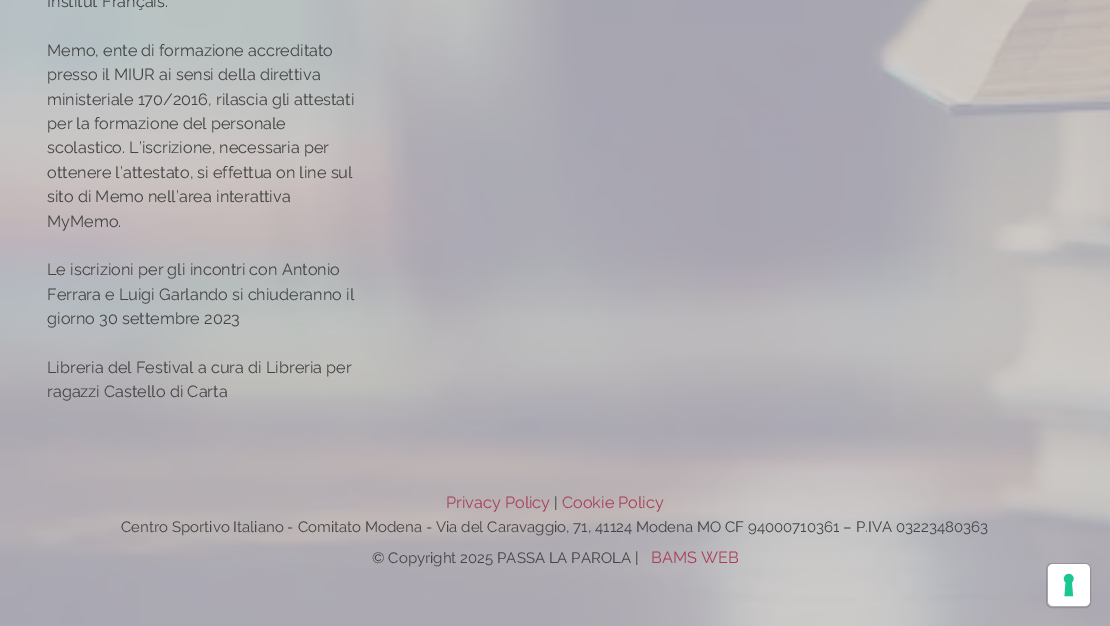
%!PS-Adobe-3.0
%%BoundingBox: 0 0 1110 626
%%LanguageLevel: 3
%%Pages: 1
%%EndComments
%%BeginProlog
/f { fill } bind def
/S { stroke } bind def
/fn { [ exch dup neg 0 0 3 -1 roll 0 0 ] selectfont } def
/tx { moveto show } def
/bx { rectfill } def
/al { dup .setfillconstantalpha .setstrokeconstantalpha } def
/rr { 5 dict begin { /r /h /w /y /x } { exch def } forall
  x r add y moveto x w add y 2 copy h add r arct x w add y h add x 1 index r arct
  x y h add x y r arct x y 2 copy exch w add exch r arct closepath end } def
/im { 5 dict begin { /h /w /y /x /name } { exch def } forall
  gsave x y translate w h scale
  w h 8 [w 0 0 h 0 0] name (r) file false 3 colorimage grestore end } def
%%EndProlog
%%BeginSetup
<< /PageSize [1110 626] /PageUsesTransparency true >> setpagedevice
%%EndSetup
%%Page: 1 1
0 .pushpdf14devicefilter
0 626 translate 1 -1 scale
4 setmiterlimit
1 setgray
0 0 1110 626 bx
(image0.raw) 0 0 1110 626 im
/Raleway-Regular 16.25 fn
0.267 setgray
(Institut Français.) 47 7 tx
(Memo, ente di formazione accreditato) 47 56 tx
(presso il MIUR ai sensi della direttiva) 47 80 tx
(ministeriale 170/2016, rilascia gli attestati) 47 105 tx
(per la formazione del personale) 47 129 tx
(scolastico. L’iscrizione, necessaria per) 47 153 tx
(ottenere l’attestato, si effettua on line sul) 47 178 tx
(sito di Memo nell’area interattiva) 47 202 tx
(MyMemo.) 47 227 tx
(Le iscrizioni per gli incontri con Antonio) 47 275 tx
(Ferrara e Luigi Garlando si chiuderanno il) 47 300 tx
(giorno 30 settembre 2023) 47 324 tx
(Libreria del Festival a cura di Libreria per) 47 373 tx
(ragazzi Castello di Carta) 47 397 tx
0.663 0.243 0.341 setrgbcolor
(Privacy Policy) 446 508 tx
/Raleway-Regular 15 fn
0.267 setgray
(|) 554 508 tx
/Raleway-Regular 16.25 fn
0.663 0.243 0.341 setrgbcolor
(Cookie Policy) 562 508 tx
/Raleway-Regular 15 fn
0.267 setgray
(Centro Sportivo Italiano - Comitato Modena - Via del Caravaggio, 71, 41124 Modena MO CF 94000710361 – P.IVA 03223480363) 121 532 tx
(© Copyright 2025 PASSA LA PAROLA |) 372 563 tx
/Raleway-Regular 16.25 fn
0.663 0.243 0.341 setrgbcolor
(BAMS WEB) 651 563 tx
0.15 al
0 setgray
1046.5 563.5 44 44 5.5 rr S
1 al
1 setgray
1048 564 42 42 5 rr f
(image1.raw) 1063 573 11 24 im
.poppdf14devicefilter showpage
%%EOF
